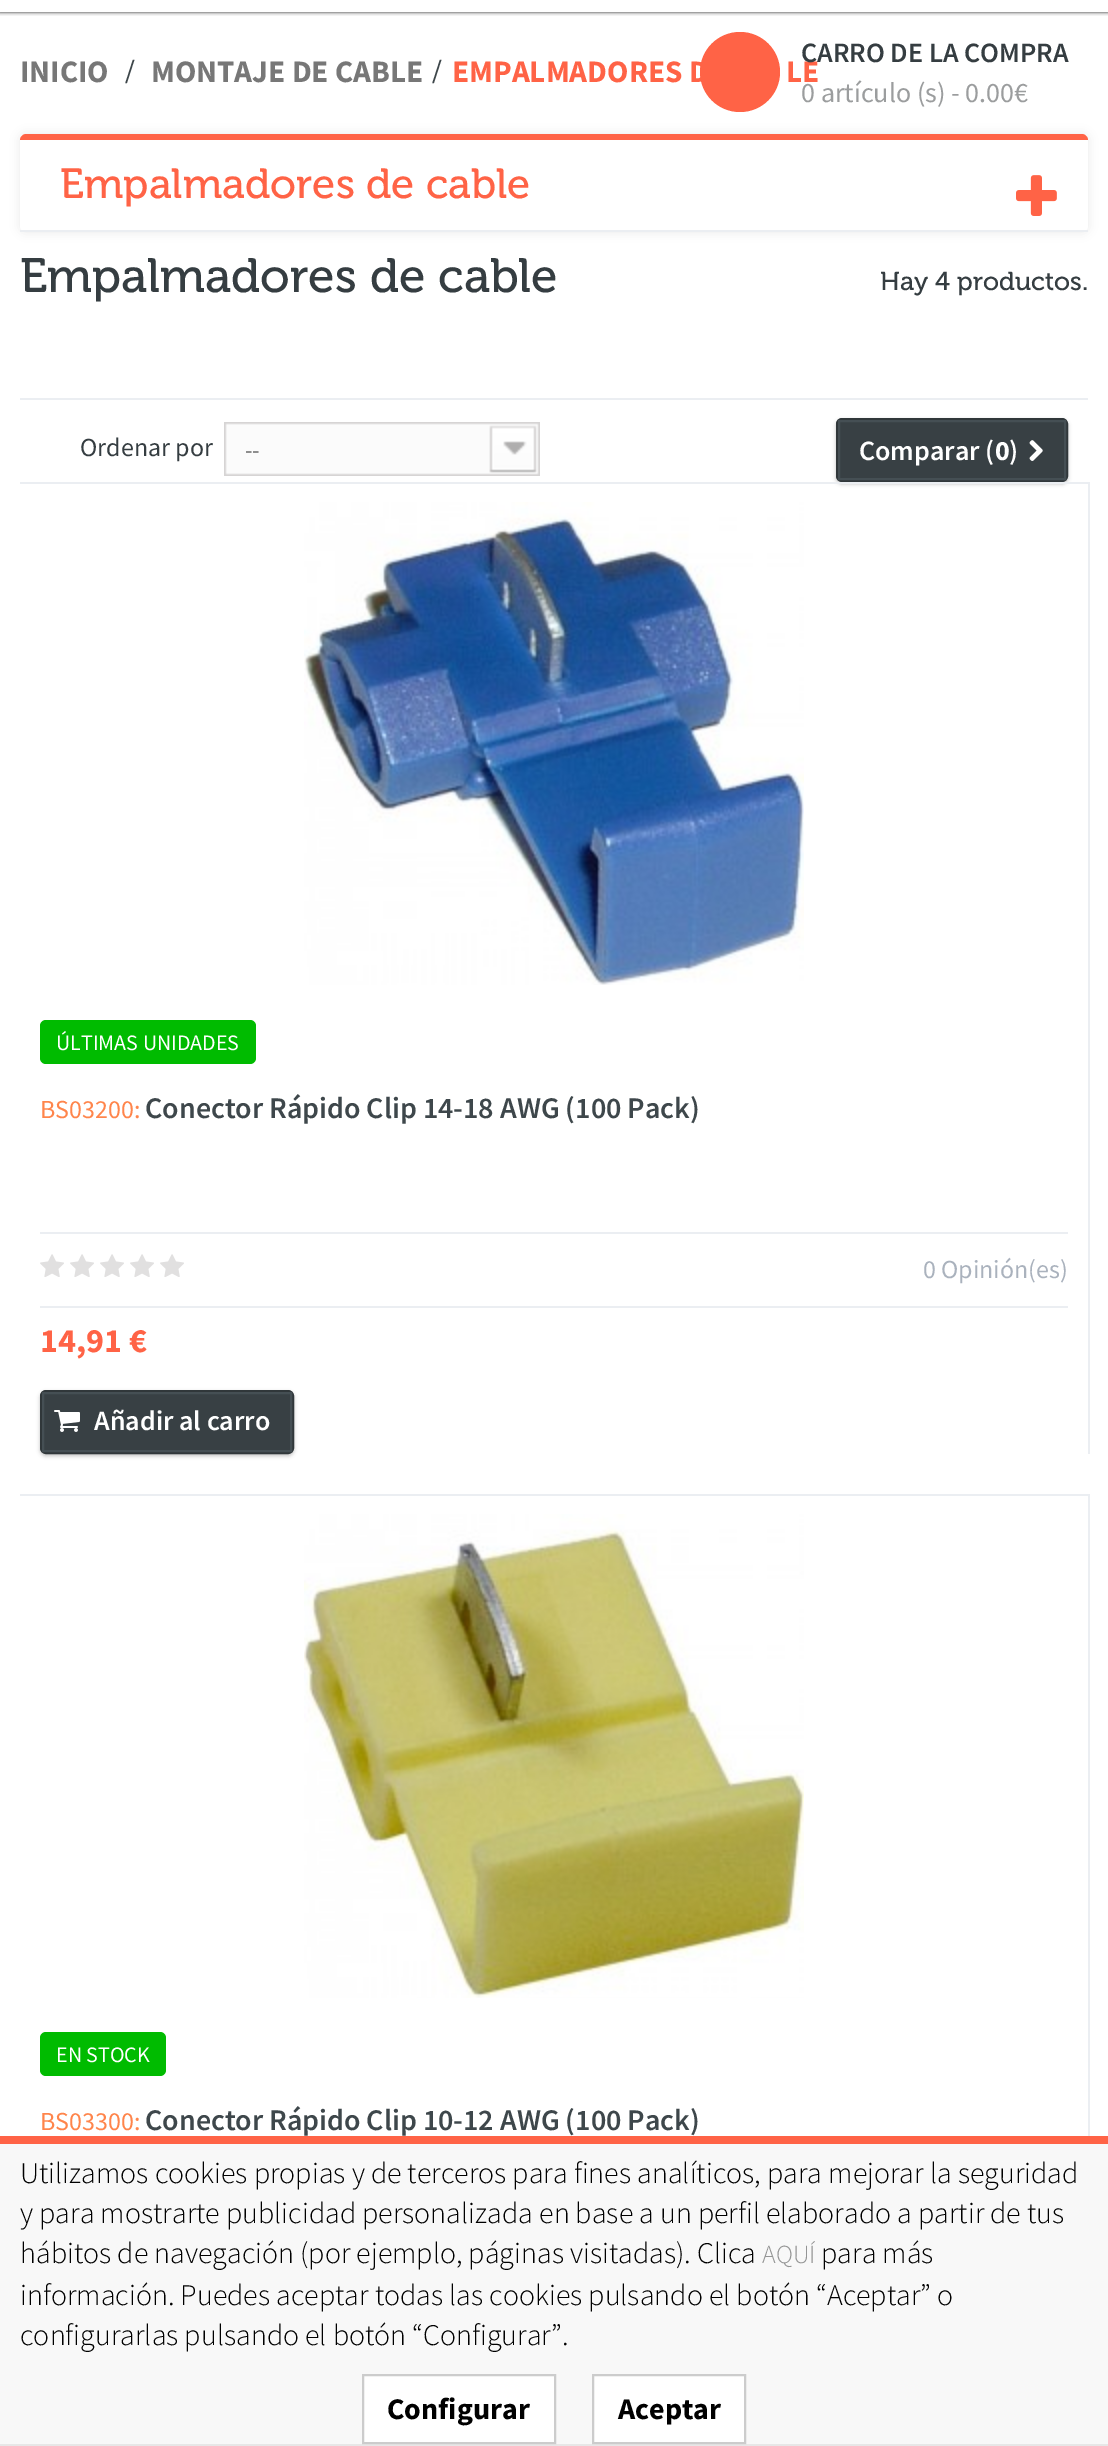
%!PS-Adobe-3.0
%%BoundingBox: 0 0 1108 2446
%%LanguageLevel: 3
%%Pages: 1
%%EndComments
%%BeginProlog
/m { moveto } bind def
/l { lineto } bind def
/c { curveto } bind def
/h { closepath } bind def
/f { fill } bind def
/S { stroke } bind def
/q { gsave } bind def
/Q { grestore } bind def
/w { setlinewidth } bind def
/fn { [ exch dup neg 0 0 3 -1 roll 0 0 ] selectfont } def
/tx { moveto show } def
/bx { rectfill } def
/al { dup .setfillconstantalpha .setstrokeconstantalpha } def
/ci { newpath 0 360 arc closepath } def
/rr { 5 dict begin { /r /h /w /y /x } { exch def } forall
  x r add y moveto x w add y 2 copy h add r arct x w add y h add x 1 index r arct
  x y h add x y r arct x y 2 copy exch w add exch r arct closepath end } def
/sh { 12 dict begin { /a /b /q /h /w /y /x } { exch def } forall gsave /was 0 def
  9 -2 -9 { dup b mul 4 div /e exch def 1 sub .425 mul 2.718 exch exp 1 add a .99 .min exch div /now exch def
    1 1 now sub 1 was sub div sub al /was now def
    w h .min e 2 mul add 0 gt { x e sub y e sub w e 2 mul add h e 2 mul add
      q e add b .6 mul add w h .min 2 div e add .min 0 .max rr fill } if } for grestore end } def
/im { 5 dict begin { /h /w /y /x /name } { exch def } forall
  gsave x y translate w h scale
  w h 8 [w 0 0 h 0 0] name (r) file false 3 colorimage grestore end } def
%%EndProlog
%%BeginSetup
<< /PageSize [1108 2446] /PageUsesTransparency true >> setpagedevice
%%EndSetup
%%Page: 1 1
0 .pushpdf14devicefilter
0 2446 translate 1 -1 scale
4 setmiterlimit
1 setgray
0 0 1108 2446 bx
/SourceSansPro-Bold 31.25 fn
0.467 setgray
(INICIO) 20 82 tx
/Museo-Regular 30 fn
0.243 0.278 0.294 setrgbcolor
(/) 125 82 tx
/SourceSansPro-Bold 31.25 fn
0.467 setgray
(MONTAJE DE CABLE) 151 82 tx
/Museo-Regular 30 fn
0.243 0.278 0.294 setrgbcolor
(/) 432 82 tx
/SourceSansPro-Bold 31.25 fn
1 0.388 0.275 setrgbcolor
(EMPALMADORES D) 452 82 tx
(LE) 786 82 tx
q
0 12 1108 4 rectclip
0.071 setgray
0 -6 1108 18 0 2 1 sh
Q
740 72 40 ci f
/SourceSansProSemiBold-SemiBold 28 fn
0.208 0.239 0.255 setrgbcolor
(CARRO DE LA COMPRA) 801 62 tx
/SourceSansPro-Regular 28 fn
0.608 0.616 0.62 setrgbcolor
(0 artículo \(s\) - 0.00€) 801 102 tx
0.647 setgray
20 134 1068 98 6 5 0.24 sh
1 setgray
20 134 1068 98 6 rr f
1 0.388 0.275 setrgbcolor
26 134 m 23 134 20 137 20 140 c 1088 140 l 1088 137 1085 134 1082 134 c h f
0.922 0.933 0.949 setrgbcolor
20 230 1068 2 bx
/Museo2-Regular 42 fn
1 0.388 0.275 setrgbcolor
(Empalmadores de cable) 60 198 tx
(image0.raw) 1016 175 41 41 im
/Museo2-Regular 48 fn
0.208 0.239 0.255 setrgbcolor
(Empalmadores de cable) 20 292 tx
/Museo2-Regular 26 fn
(Hay 4 productos.) 880 290 tx
0.922 0.933 0.949 setrgbcolor
20 398 1068 2 bx
/SourceSansPro-Regular 26 fn
0.208 0.239 0.255 setrgbcolor
(Ordenar por) 80 456 tx
(image1.raw) 224 422 316 54 im
(image2.raw) 489 423 51 52 im
/SourceSansPro-Regular 24 fn
0.4 setgray
(--) 245 458 tx
0 setgray
836 420 232 64 6 2 0.24 sh
0.22 0.251 0.267 setrgbcolor
837 419 230 62 5 rr q f Q
0.188 0.216 0.227 setrgbcolor
2 w
S
0.271 0.31 0.329 setrgbcolor
839 421 226 58 rectstroke
/SourceSansProSemiBold-SemiBold 28 fn
1 setgray
(Comparar \() 859 460 tx
/SourceSansPro-Bold 28 fn
(0) 995 460 tx
/SourceSansProSemiBold-SemiBold 28 fn
(\)) 1009 460 tx
(image3.raw) 1029 440 14 21 im
0.922 0.933 0.949 setrgbcolor
20 482 1070 2 bx
1088 482 2 972 bx
(image4.raw) 304 502 500 483 im
0 0.733 0 setrgbcolor
40 1020 216 44 6 rr f
/SourceSansPro-Regular 22 fn
1 setgray
(ÚLTIMAS UNIDADES) 56 1050 tx
0.922 0.933 0.949 setrgbcolor
40 1232 1028 2 bx
/SourceSansPro-Regular 26 fn
1 0.522 0.294 setrgbcolor
(BS03200:) 40 1118 tx
/SourceSansProSemiBold-SemiBold 30 fn
0.243 0.278 0.294 setrgbcolor
(Conector Rápido Clip 14-18 AWG \(100 Pack\)) 145 1118 tx
(image5.raw) 40 1254 24 23 im
(image5.raw) 70 1254 24 23 im
(image5.raw) 100 1254 24 23 im
(image5.raw) 130 1254 24 23 im
(image5.raw) 160 1254 24 23 im
/SourceSansPro-Regular 26 fn
0.667 0.698 0.741 setrgbcolor
(0 Opinión\(es\)) 923 1278 tx
0.922 0.933 0.949 setrgbcolor
40 1306 1028 2 bx
/SourceSansPro-Bold 34 fn
1 0.388 0.275 setrgbcolor
(14,91 €) 40 1352 tx
0 setgray
40 1392 254 64 6 2 0.24 sh
0.22 0.251 0.267 setrgbcolor
41 1391 252 62 5 rr q f Q
0.188 0.216 0.227 setrgbcolor
S
0.271 0.31 0.329 setrgbcolor
43 1393 248 58 rectstroke
(image6.raw) 54 1410 26 22 im
/SourceSansProSemiBold-SemiBold 28 fn
1 setgray
(Añadir al carro) 94 1430 tx
0.922 0.933 0.949 setrgbcolor
20 1494 1070 2 bx
1088 1494 2 642 bx
(image7.raw) 304 1514 500 484 im
0 0.733 0 setrgbcolor
40 2032 126 44 6 rr f
/SourceSansPro-Regular 22 fn
1 setgray
(EN STOCK) 56 2062 tx
/SourceSansPro-Regular 26 fn
1 0.522 0.294 setrgbcolor
(BS03300:) 40 2130 tx
/SourceSansProSemiBold-SemiBold 30 fn
0.243 0.278 0.294 setrgbcolor
(Conector Rápido Clip 10-12 AWG \(100 Pack\)) 145 2130 tx
0.973 setgray
0 2144 1108 300 bx
0.906 setgray
0 2444 1108 2 bx
1 0.388 0.275 setrgbcolor
0 2136 1108 8 bx
/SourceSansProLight-Light 30 fn
0 setgray
(Utilizamos cookies propias y de terceros para fines analíticos, para mejorar la seguridad) 20 2183 tx
(y para mostrarte publicidad personalizada en base a un perfil elaborado a partir de tus) 20 2223 tx
(hábitos de navegación \(por ejemplo, páginas visitadas\). Clica) 20 2263 tx
/SourceSansProLight-Light 26 fn
0.58 0.584 0.584 setrgbcolor
(AQUÍ) 762 2263 tx
/SourceSansProLight-Light 30 fn
0 setgray
(para más) 821 2263 tx
(información. Puedes aceptar todas las cookies pulsando el botón “Aceptar” o) 20 2305 tx
(configurarlas pulsando el botón “Configurar”.) 20 2345 tx
1 setgray
363 2375 m 555 2375 l 555 2443 l 363 2443 l h q f Q
0.8 setgray
S
/SourceSansPro-Bold 30 fn
0 setgray
(Configurar) 387 2419 tx
1 setgray
593 2375 m 745 2375 l 745 2443 l 593 2443 l h q f Q
0.8 setgray
S
0 setgray
(Aceptar) 618 2419 tx
.poppdf14devicefilter showpage
%%EOF
